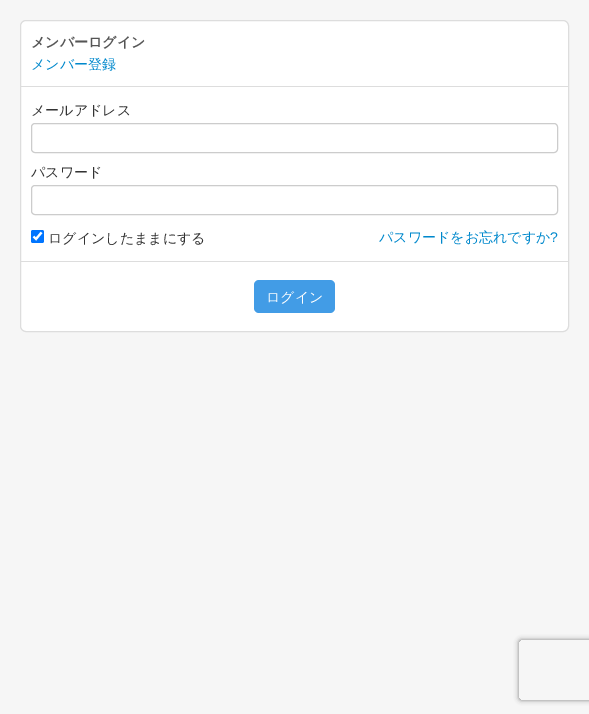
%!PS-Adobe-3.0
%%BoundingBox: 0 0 589 714
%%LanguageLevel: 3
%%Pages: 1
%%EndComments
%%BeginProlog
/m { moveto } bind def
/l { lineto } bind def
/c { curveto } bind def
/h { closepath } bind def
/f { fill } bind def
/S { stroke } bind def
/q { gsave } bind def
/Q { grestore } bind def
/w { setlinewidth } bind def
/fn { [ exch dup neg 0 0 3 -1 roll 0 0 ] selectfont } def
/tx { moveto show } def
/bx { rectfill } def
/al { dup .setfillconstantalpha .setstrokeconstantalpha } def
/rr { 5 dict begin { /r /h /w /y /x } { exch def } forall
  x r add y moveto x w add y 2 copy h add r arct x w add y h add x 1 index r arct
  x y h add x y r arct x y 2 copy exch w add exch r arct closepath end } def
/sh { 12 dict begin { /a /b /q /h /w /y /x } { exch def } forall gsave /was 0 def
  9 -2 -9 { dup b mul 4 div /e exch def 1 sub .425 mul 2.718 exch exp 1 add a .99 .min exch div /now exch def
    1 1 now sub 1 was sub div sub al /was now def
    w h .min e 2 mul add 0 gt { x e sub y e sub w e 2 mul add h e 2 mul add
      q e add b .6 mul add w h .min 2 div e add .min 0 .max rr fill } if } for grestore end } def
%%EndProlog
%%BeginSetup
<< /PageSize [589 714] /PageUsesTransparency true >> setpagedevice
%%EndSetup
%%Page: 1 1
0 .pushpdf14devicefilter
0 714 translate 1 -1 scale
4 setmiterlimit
0.965 setgray
0 0 589 714 bx
1 setgray
20.5 20.5 548 311 5.5 rr q f Q
0.867 setgray
S
21 86 547 1 bx
/WenQuanYiZenHei-Bold 14 fn
0.333 setgray
(メンバーログイン) 31 47 tx
/WenQuanYiZenHei-Medium 14 fn
0 0.533 0.8 setrgbcolor
(メンバー登録) 31 69 tx
0.2 setgray
(メールアドレス) 31 115 tx
0.8 setgray
31.5 123.5 526 29 3.5 rr S
0.2 setgray
(パスワード) 31 177 tx
0.8 setgray
31.5 185.5 526 29 3.5 rr S
0 0.459 1 setrgbcolor
31 230 13 13 2 rr f
1 setgray
2.1 w
33.5 236.5 m 36 239 l 41.5 232.5 l S
0.2 setgray
(ログインしたままにする) 48 243 tx
0 0.533 0.8 setrgbcolor
(パスワードをお忘れですか) 379 242 tx
/LiberationSans-Regular 14 fn
(?) 550 242 tx
0.867 setgray
21 261 547 1 bx
0.259 0.612 0.902 setrgbcolor
254 280 81 33 5 rr f
/WenQuanYiZenHei-Medium 14 fn
1 setgray
(ログイン) 266 302 tx
q
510 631 m 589 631 l 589 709 l 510 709 l h 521 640 m 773 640 l 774 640 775 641 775 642 c 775 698 l 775 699 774 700 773 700 c 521 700 l 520 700 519 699 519 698 c 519 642 l 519 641 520 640 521 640 c h eoclip newpath
0.502 setgray
519 640 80 60 2 2.5 1 sh
Q
.poppdf14devicefilter showpage
%%EOF
